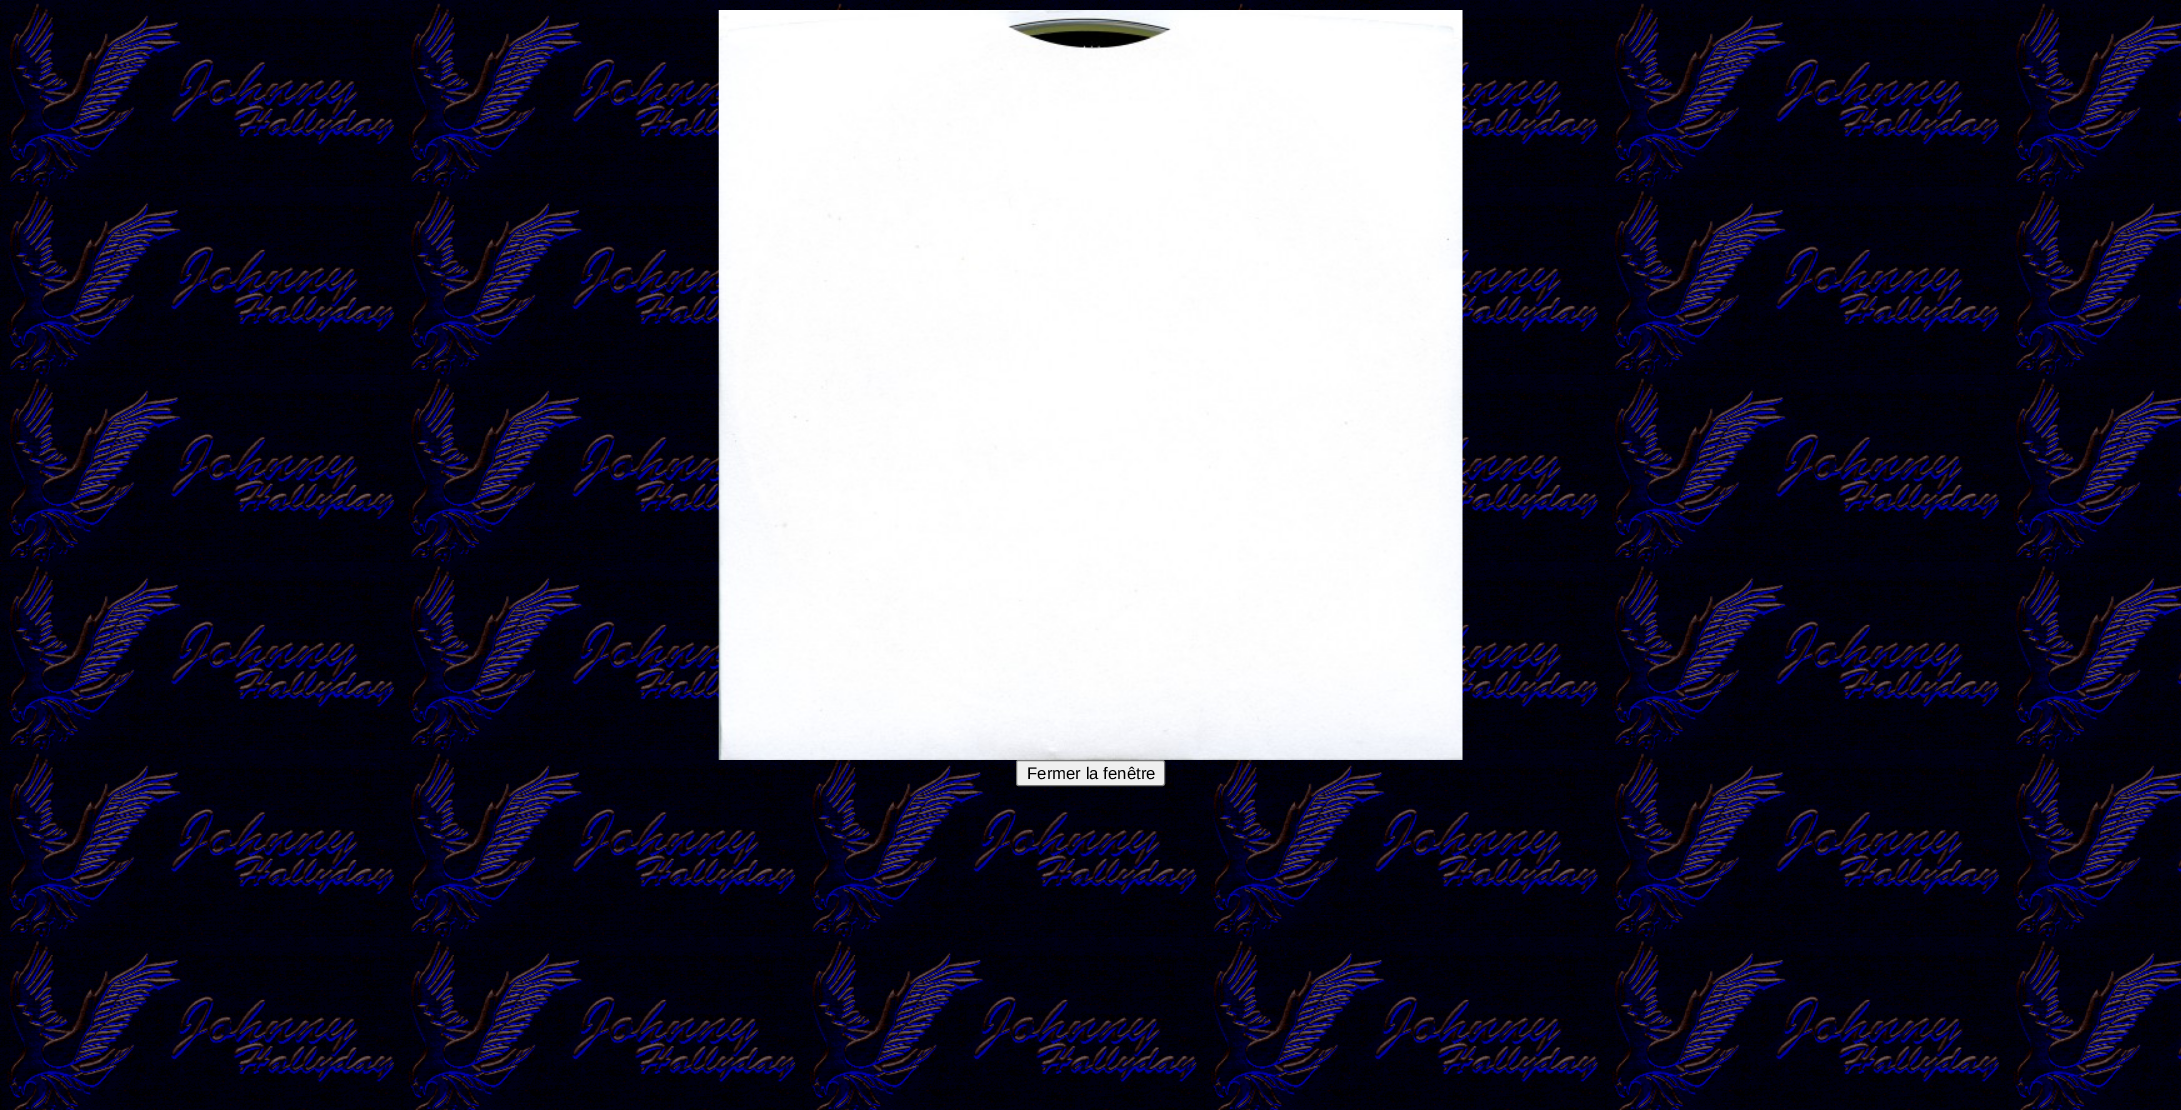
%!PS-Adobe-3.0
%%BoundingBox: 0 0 2181 1110
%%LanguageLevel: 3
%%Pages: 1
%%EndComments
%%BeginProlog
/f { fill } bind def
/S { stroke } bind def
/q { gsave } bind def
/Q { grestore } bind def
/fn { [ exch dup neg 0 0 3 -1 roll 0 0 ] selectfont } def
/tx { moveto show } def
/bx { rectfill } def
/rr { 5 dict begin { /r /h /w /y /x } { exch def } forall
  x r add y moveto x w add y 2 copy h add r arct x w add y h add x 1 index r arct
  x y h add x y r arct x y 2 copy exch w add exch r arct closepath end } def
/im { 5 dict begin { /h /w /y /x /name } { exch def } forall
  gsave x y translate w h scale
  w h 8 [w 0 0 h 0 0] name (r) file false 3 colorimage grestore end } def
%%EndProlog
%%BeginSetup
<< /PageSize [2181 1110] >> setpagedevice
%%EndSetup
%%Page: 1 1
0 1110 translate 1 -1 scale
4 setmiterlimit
1 setgray
0 0 2181 1110 bx
(image0.raw) 0 0 2181 1110 im
(image1.raw) 718 10 745 750 im
0.937 setgray
1016.5 760.5 148 25 2 rr q f Q
0.463 setgray
S
/LiberationSans-Regular 16.75 fn
0 setgray
(Fermer la fenêtre) 1027 779 tx
showpage
%%EOF
